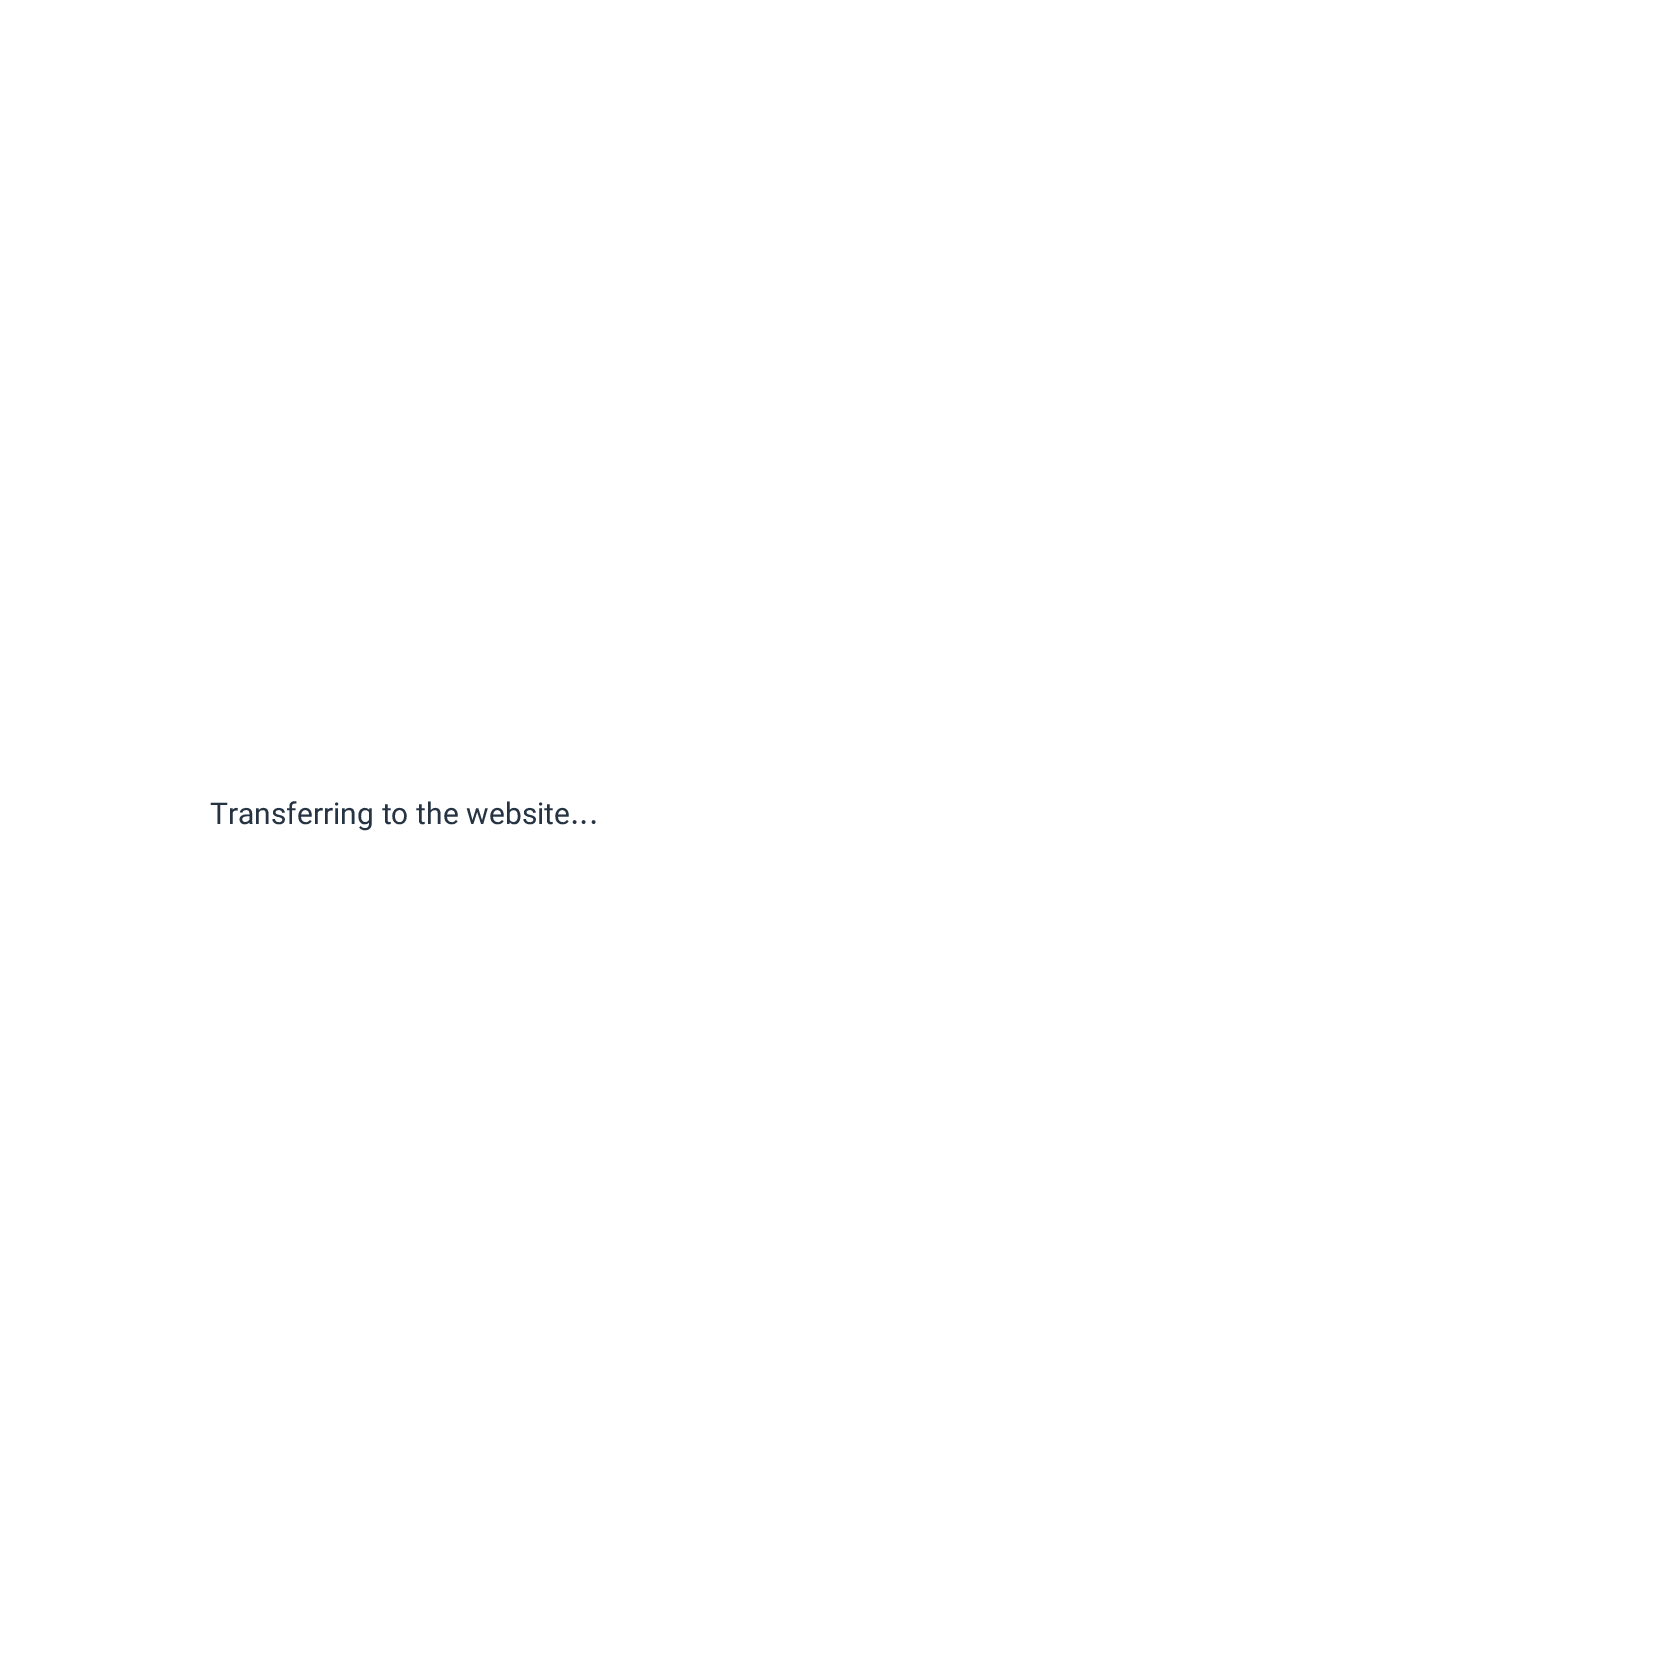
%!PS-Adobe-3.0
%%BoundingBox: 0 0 1658 1653
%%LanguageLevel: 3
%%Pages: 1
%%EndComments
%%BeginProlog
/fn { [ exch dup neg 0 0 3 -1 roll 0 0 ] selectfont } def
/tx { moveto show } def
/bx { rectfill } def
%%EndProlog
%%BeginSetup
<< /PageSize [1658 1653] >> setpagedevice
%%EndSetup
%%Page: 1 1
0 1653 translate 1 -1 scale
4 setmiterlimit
1 setgray
0 0 1658 1653 bx
/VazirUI-Regular 30 fn
0.145 0.2 0.263 setrgbcolor
(Transferring to the website...) 210 824 tx
showpage
%%EOF
